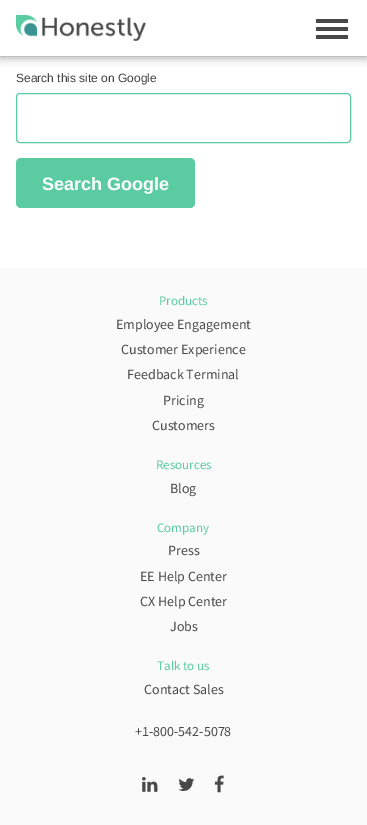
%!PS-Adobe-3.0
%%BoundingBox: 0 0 367 825
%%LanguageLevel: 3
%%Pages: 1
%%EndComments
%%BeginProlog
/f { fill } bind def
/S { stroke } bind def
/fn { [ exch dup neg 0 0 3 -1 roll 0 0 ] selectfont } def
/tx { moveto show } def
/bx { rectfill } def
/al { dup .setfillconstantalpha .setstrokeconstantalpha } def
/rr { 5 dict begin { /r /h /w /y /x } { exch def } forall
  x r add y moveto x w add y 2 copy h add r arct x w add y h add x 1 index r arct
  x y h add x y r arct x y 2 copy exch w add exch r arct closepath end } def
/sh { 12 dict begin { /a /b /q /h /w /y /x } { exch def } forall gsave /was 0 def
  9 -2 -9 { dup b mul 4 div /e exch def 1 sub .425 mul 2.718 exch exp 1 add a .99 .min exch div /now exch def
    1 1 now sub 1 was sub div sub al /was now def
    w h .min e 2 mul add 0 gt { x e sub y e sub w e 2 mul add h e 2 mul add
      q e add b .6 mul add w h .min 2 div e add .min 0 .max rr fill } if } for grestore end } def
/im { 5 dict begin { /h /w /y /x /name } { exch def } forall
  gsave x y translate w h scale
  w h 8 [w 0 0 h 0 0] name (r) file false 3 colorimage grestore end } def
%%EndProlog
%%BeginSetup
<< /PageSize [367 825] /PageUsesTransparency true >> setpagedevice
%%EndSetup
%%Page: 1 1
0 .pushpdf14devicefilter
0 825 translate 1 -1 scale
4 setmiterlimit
1 setgray
0 0 367 825 bx
0 setgray
0 0 367 56 0 5 0.5 sh
1 setgray
0 0 367 56 bx
(image0.raw) 16 15 130 26 im
0.282 setgray
316 27 32 4 1 rr f
316 19 32 4 1 rr f
316 35 32 4 1 rr f
/LiberationSans-Regular 12 fn
0.255 setgray
(Search this site on Google) 16 82 tx
0.357 0.8 0.635 setrgbcolor
16.5 93.5 334 49 3.5 rr S
16 158 179 50 5 rr f
/LiberationSans-Bold 18 fn
1 setgray
(Search Google) 42 190 tx
0.98 setgray
0 268 367 557 bx
/SourceSansPro-Regular 13 fn
0.357 0.8 0.635 setrgbcolor
(Products) 159 305 tx
/SourceSansPro-Regular 14 fn
0.282 setgray
(Employee Engagement) 116 329 tx
(Customer Experience) 121 354 tx
(Feedback Terminal) 127 379 tx
(Pricing) 163 405 tx
(Customers) 152 430 tx
/SourceSansPro-Regular 13 fn
0.357 0.8 0.635 setrgbcolor
(Resources) 156 469 tx
/SourceSansPro-Regular 14 fn
0.282 setgray
(Blog) 170 493 tx
/SourceSansPro-Regular 13 fn
0.357 0.8 0.635 setrgbcolor
(Company) 157 532 tx
/SourceSansPro-Regular 14 fn
0.282 setgray
(Press) 168 555 tx
(EE Help Center) 140 581 tx
(CX Help Center) 140 606 tx
(Jobs) 170 631 tx
/SourceSansPro-Regular 13 fn
0.357 0.8 0.635 setrgbcolor
(Talk to us) 157 670 tx
/SourceSansPro-Regular 14 fn
0.282 setgray
(Contact Sales) 144 694 tx
(+1-800-542-5078) 135 736 tx
(image1.raw) 142 777 16 15 im
(image2.raw) 178 778 17 13 im
(image3.raw) 214 775 10 18 im
.poppdf14devicefilter showpage
%%EOF
